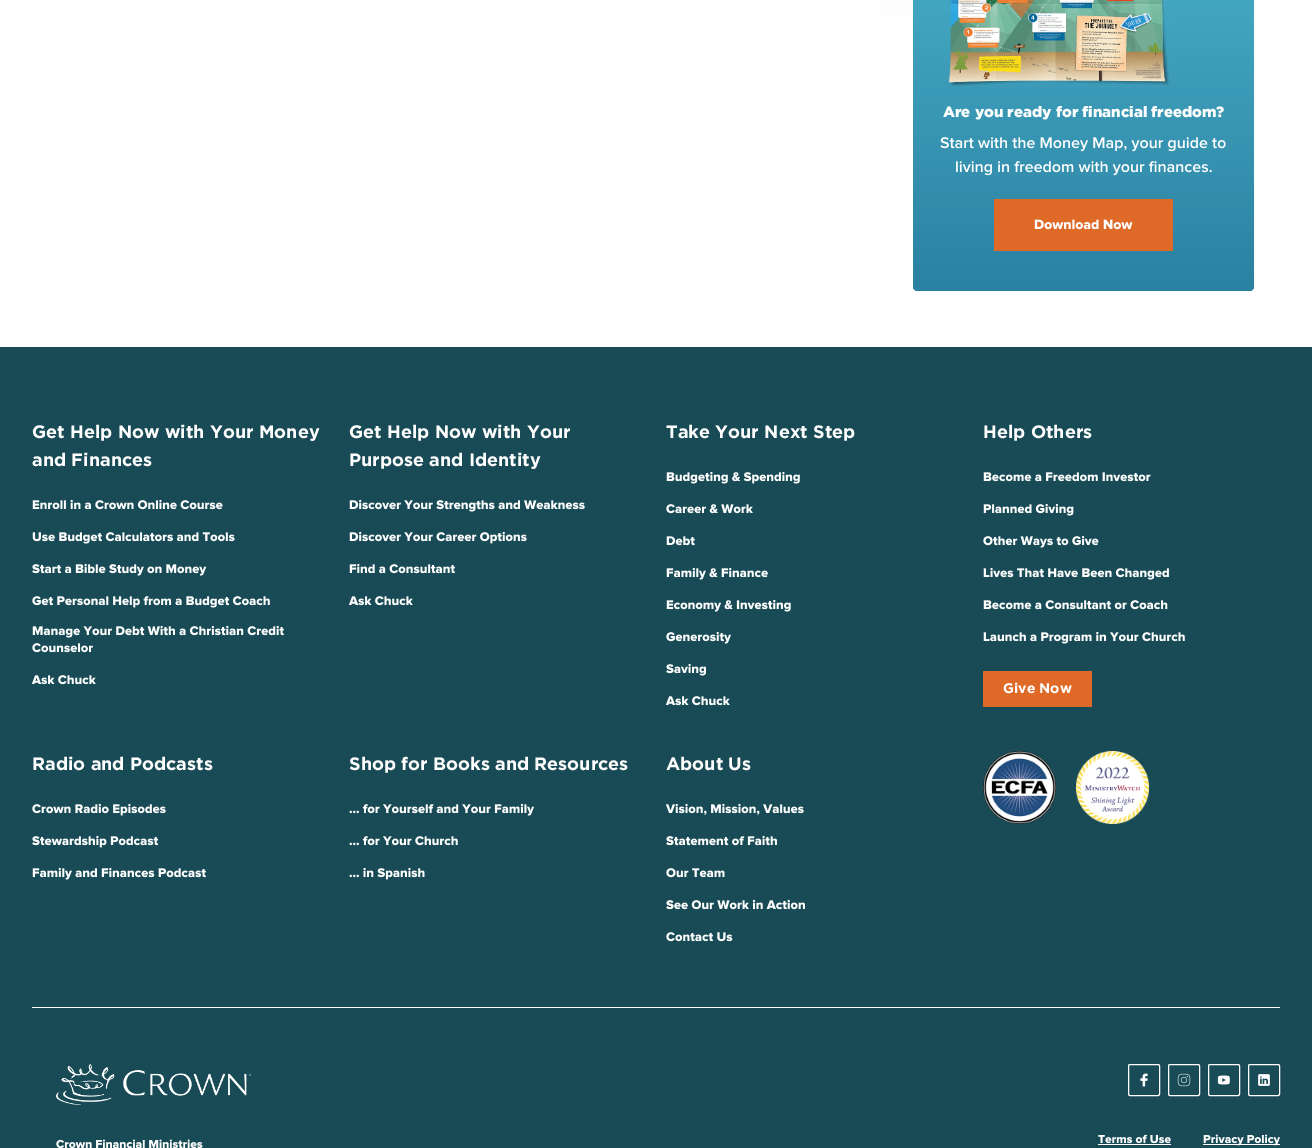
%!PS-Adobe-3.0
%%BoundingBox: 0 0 1312 1148
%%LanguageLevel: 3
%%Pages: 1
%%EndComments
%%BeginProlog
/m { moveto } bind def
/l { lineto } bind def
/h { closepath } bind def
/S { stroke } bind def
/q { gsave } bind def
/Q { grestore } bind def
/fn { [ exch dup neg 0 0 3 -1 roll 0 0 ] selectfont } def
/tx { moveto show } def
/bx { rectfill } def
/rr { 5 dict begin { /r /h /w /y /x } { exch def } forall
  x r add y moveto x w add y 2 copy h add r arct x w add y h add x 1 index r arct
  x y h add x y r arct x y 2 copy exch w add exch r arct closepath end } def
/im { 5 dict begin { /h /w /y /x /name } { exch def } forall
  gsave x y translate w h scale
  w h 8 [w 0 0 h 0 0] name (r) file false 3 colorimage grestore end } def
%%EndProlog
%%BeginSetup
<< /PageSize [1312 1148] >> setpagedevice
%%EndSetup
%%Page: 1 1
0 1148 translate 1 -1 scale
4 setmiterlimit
1 setgray
0 0 1312 1148 bx
q 881 0 m 928 0 l 928 17 l 881 17 l h clip newpath
<< /ShadingType 2 /ColorSpace /DeviceRGB /Coords [777 -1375 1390 309] /Extend [true true] /Function << /FunctionType 2 /Domain [0 1] /C0 [0.961 0.961 0.961] /C1 [1 1 1] /N 1 >> >> shfill Q
q 913 -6 341 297 6 rr clip newpath
<< /ShadingType 2 /ColorSpace /DeviceRGB /Coords [1084 -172 1084 291] /Extend [true true] /Function << /FunctionType 2 /Domain [0 1] /C0 [0.322 0.737 0.831] /C1 [0.165 0.506 0.631] /N 1 >> >> shfill Q
(image0.raw) 949 0 221 87 im
/Gotham-Black 15 fn
(Are you ready for financial freedom?) 943 117 tx
(image1.raw) 940 137 286 15 im
(image2.raw) 956 161 256 15 im
0.875 0.412 0.149 setrgbcolor
994 199 179 52 bx
(image3.raw) 1034 219 99 11 im
0.098 0.294 0.337 setrgbcolor
0 347 1312 801 bx
1 setgray
32 1007 1248 1 bx
/Gotham-Bold 18 fn
(Get Help Now with Your Money) 32 438 tx
(and Finances) 32 466 tx
(image4.raw) 32 499 191 11 im
(image5.raw) 32 532 203 12 im
(image6.raw) 32 563 175 13 im
(image7.raw) 32 596 238 12 im
(image8.raw) 32 625 252 13 im
(image9.raw) 32 643 61 10 im
(image10.raw) 31 675 65 10 im
(Get Help Now with Your) 349 438 tx
(Purpose and Identity) 349 466 tx
(image11.raw) 349 499 236 13 im
(image12.raw) 349 531 178 13 im
(image13.raw) 349 563 106 11 im
(image10.raw) 348 596 65 10 im
(Take Your Next Step) 666 438 tx
(image14.raw) 666 471 134 13 im
(image15.raw) 666 504 87 10 im
(image16.raw) 666 536 29 10 im
(image17.raw) 666 567 102 13 im
(image18.raw) 666 599 125 13 im
(image19.raw) 666 631 65 13 im
(image20.raw) 666 663 40 13 im
(image10.raw) 665 696 65 10 im
(Help Others) 983 438 tx
(image21.raw) 983 472 168 10 im
(image22.raw) 983 503 91 13 im
(image23.raw) 983 535 116 13 im
(image24.raw) 983 567 186 13 im
(image25.raw) 983 600 185 10 im
(image26.raw) 983 631 202 13 im
0.875 0.412 0.149 setrgbcolor
983 671 109 36 bx
/Gotham-Bold 14 fn
1 setgray
(Give Now) 1003 693 tx
/Gotham-Bold 18 fn
(Radio and Podcasts) 32 770 tx
(image27.raw) 32 803 134 13 im
(image28.raw) 32 835 127 13 im
(image29.raw) 32 867 174 13 im
(Shop for Books and Resources) 349 770 tx
(image30.raw) 349 803 185 13 im
(image31.raw) 349 836 109 10 im
(image32.raw) 349 867 76 13 im
(About Us) 666 770 tx
(image33.raw) 665 803 139 12 im
(image34.raw) 666 835 111 11 im
(image35.raw) 666 868 59 10 im
(image36.raw) 666 899 139 11 im
(image37.raw) 666 932 67 10 im
(image38.raw) 983 751 73 73 im
(image39.raw) 1076 751 73 73 im
(image40.raw) 56 1064 195 41 im
(image41.raw) 56 1139 147 9 im
1128.5 1064.5 31 31 1.5 rr S
(image42.raw) 1140 1073 8 14 im
1168.5 1064.5 31 31 1.5 rr S
(image43.raw) 1177 1073 14 14 im
1208.5 1064.5 31 31 1.5 rr S
(image44.raw) 1217 1075 13 10 im
1248.5 1064.5 31 31 1.5 rr S
(image45.raw) 1258 1074 12 12 im
(image46.raw) 1098 1134 73 10 im
1098 1144 73 1 bx
1203 1144 77 1 bx
(image47.raw) 1203 1134 77 12 im
showpage
%%EOF
